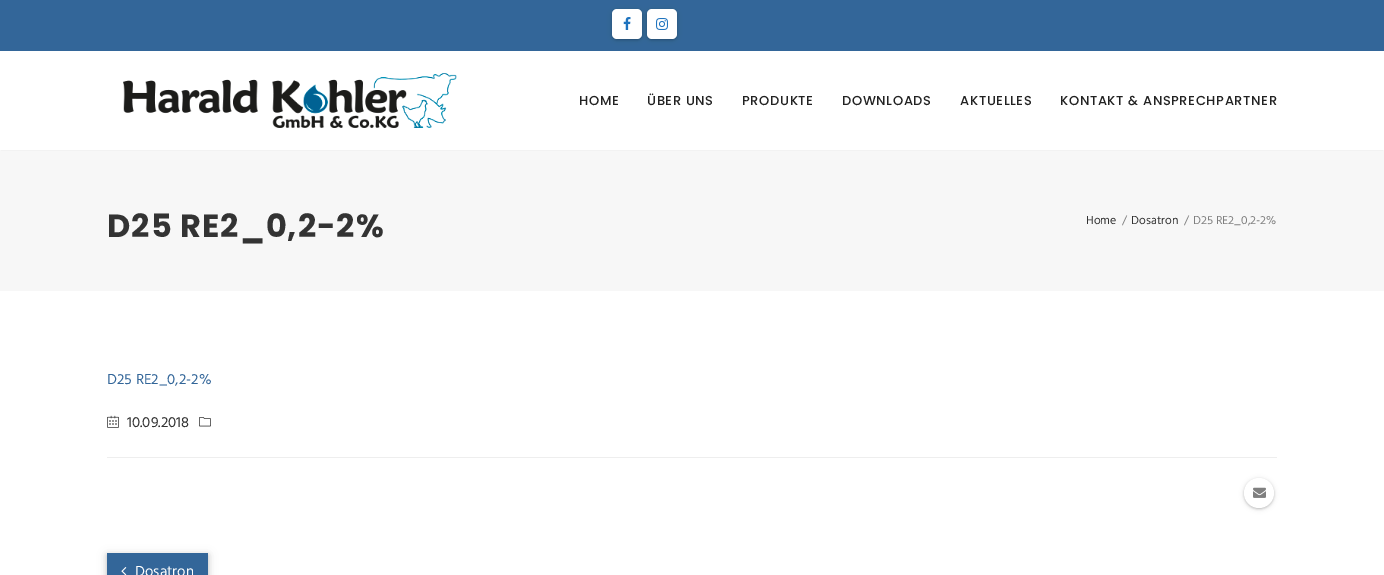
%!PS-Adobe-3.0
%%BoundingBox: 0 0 1384 575
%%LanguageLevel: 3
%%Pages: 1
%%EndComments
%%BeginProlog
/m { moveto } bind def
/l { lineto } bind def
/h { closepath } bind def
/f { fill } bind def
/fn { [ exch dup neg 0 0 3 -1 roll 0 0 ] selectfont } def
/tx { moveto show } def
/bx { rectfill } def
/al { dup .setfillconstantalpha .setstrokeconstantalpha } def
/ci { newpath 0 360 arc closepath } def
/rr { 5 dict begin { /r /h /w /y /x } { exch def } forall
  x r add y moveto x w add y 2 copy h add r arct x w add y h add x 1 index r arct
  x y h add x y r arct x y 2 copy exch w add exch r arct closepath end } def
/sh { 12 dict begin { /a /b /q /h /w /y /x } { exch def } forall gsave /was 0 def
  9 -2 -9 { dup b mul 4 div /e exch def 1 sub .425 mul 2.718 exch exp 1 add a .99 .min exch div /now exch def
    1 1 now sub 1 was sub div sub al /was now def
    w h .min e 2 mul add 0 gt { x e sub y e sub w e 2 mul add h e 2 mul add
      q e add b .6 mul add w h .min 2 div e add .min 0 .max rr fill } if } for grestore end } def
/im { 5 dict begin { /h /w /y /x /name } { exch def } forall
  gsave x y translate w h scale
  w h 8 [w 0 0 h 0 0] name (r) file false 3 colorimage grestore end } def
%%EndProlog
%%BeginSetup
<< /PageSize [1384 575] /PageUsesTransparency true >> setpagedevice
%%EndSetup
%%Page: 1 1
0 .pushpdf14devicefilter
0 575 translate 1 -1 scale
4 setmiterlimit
1 setgray
0 0 1384 575 bx
0.2 0.4 0.6 setrgbcolor
0 0 1384 51 bx
0 setgray
612 10 30 30 5 2.5 0.12 sh
612 10 30 30 5 1 0.16 sh
1 setgray
612 9 30 30 5 rr f
(image0.raw) 623 17 8 13 im
0 setgray
647 10 30 30 5 2.5 0.12 sh
647 10 30 30 5 1 0.16 sh
1 setgray
647 9 30 30 5 rr f
(image1.raw) 656 18 12 12 im
0.949 setgray
1384 151 m 0 151 l 1 150 l 1383 150 l h f
(image2.raw) 123 73 334 55 im
/Poppins-Medium 13 fn
0.133 setgray
579 105 m 0.65 0 (HOME) ashow
647 105 m 0.65 0 (ÜBER UNS) ashow
742 105 m 0.65 0 (PRODUKTE) ashow
842 105 m 0.65 0 (DOWNLOADS) ashow
960 105 m 0.65 0 (AKTUELLES) ashow
1060 105 m 0.65 0 (KONTAKT & ANSPRECHPARTNER) ashow
0.969 setgray
0 151 1384 140 bx
/Poppins-Bold 32 fn
0.2 setgray
107 237 m 1 0 (D25 RE2_0,2-2%) ashow
/Hind-Regular 12 fn
(Home) 1086 224 tx
0.498 setgray
(/) 1122 224 tx
0.2 setgray
(Dosatron) 1131 224 tx
0.498 setgray
(/) 1184 224 tx
(D25 RE2_0,2-2%) 1193 224 tx
/Hind-Regular 15 fn
0.2 0.4 0.6 setrgbcolor
(D25 RE2_0,2-2%) 107 384 tx
(image3.raw) 107 415 12 13 im
0.2 setgray
(10.09.2018) 127 427 tx
(image4.raw) 199 417 12 10 im
0.933 setgray
107 457 1170 1 bx
0 setgray
1244 479 30 30 15 2.5 0.12 sh
1244 479 30 30 15 1 0.16 sh
1 setgray
1259 493 15 ci f
(image5.raw) 1253 487 13 11 im
0 setgray
107 555 101 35 0 5 0.12 sh
107 555 101 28 0 2.5 0.16 sh
0.2 0.4 0.6 setrgbcolor
107 553 101 22 bx
(image6.raw) 121 567 6 8 im
1 setgray
(Dosatron) 135 576 tx
.poppdf14devicefilter showpage
%%EOF
